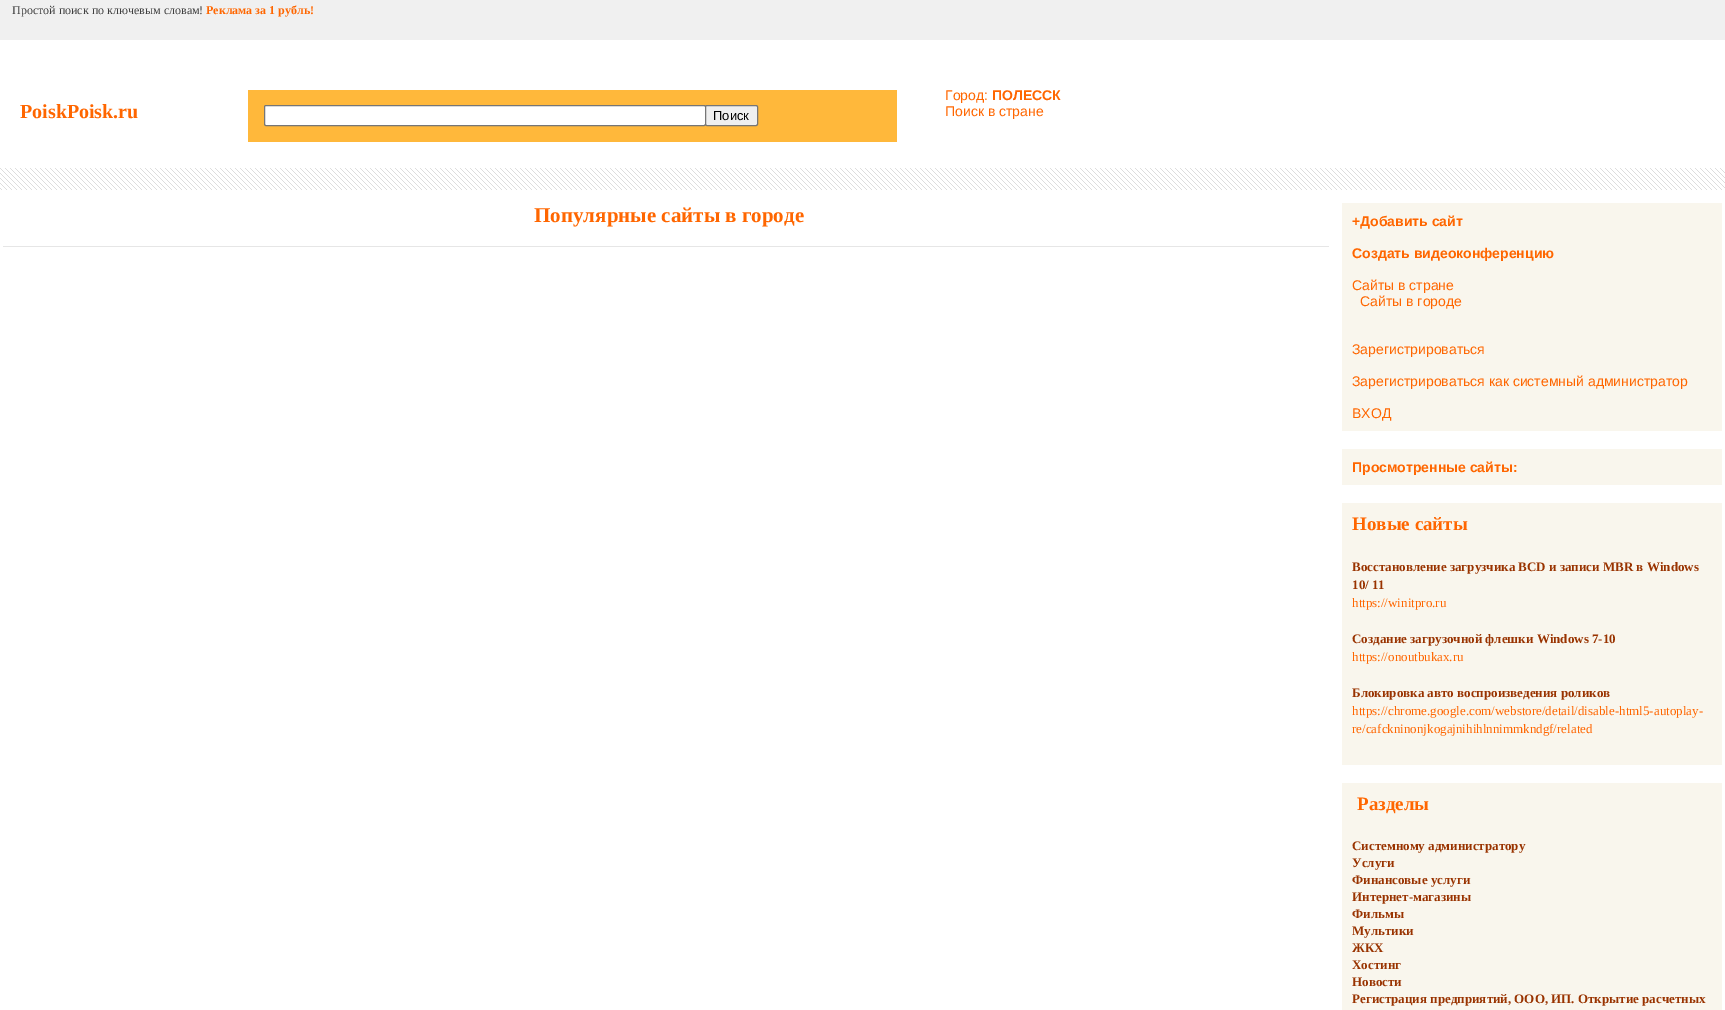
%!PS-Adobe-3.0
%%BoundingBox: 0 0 1725 1010
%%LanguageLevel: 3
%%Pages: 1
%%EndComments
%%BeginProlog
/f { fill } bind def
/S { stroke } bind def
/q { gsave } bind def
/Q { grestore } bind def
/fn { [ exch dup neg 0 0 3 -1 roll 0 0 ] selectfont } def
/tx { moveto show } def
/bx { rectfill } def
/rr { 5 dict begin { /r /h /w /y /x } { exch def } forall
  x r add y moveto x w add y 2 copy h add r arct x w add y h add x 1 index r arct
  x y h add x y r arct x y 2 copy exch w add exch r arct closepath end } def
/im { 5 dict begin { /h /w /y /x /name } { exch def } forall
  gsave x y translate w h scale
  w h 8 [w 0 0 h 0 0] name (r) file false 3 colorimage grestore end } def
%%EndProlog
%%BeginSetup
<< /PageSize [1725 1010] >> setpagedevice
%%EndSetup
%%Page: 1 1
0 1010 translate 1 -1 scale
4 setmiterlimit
1 setgray
0 0 1725 1010 bx
0.941 setgray
0 0 1725 40 bx
/LiberationSerif-Regular 12 fn
0.251 setgray
(Простой поиск по ключевым словам!) 12 14 tx
/LiberationSerif-Bold 12 fn
1 0.4 0 setrgbcolor
(Реклама за 1 рубль!) 206 14 tx
/LiberationSerif-Bold 20 fn
(PoiskPoisk.ru) 20 118 tx
1 0.722 0.231 setrgbcolor
248 90 649 52 bx
/LiberationSans-Regular 14 fn
1 0.4 0 setrgbcolor
(Город:) 945 100 tx
/LiberationSans-Bold 14 fn
(ПОЛЕССК) 992 100 tx
/LiberationSans-Regular 14 fn
(Поиск в стране) 945 116 tx
1 setgray
264.5 105.5 441 20 1.5 rr q f Q
0.463 setgray
S
0.937 setgray
705.5 105.5 52 20 1.5 rr q f Q
0.463 setgray
S
/LiberationSans-Regular 13 fn
0 setgray
(Поиск) 713 120 tx
(image0.raw) 0 168 1725 22 im
/LiberationSerif-Bold 21 fn
1 0.4 0 setrgbcolor
(Популярные сайты в городе) 534 222 tx
0.902 setgray
3 246 1326 1 bx
0.976 0.965 0.929 setrgbcolor
1342 203 380 228 bx
/LiberationSans-Bold 14 fn
1 0.4 0 setrgbcolor
(+Добавить сайт) 1352 226 tx
(Создать видеоконференцию) 1352 258 tx
/LiberationSans-Regular 14 fn
(Сайты в стране) 1352 290 tx
(Сайты в городе) 1360 306 tx
(Зарегистрироваться) 1352 354 tx
(Зарегистрироваться как системный администратор) 1352 386 tx
(ВХОД) 1352 418 tx
0.976 0.965 0.929 setrgbcolor
1342 449 380 36 bx
/LiberationSans-Bold 14 fn
1 0.4 0 setrgbcolor
(Просмотренные сайты:) 1352 472 tx
0.976 0.965 0.929 setrgbcolor
1342 503 380 262 bx
/LiberationSerif-Bold 19 fn
1 0.4 0 setrgbcolor
(Новые сайты) 1352 530 tx
/LiberationSerif-Bold 13 fn
0.6 0.2 0 setrgbcolor
(Восстановление загрузчика BCD и записи MBR в Windows) 1352 571 tx
(10/ 11) 1352 589 tx
/LiberationSerif-Regular 13 fn
1 0.4 0 setrgbcolor
(https://winitpro.ru) 1352 607 tx
/LiberationSerif-Bold 13 fn
0.6 0.2 0 setrgbcolor
(Создание загрузочной флешки Windows 7-10) 1352 643 tx
/LiberationSerif-Regular 13 fn
1 0.4 0 setrgbcolor
(https://onoutbukax.ru) 1352 661 tx
/LiberationSerif-Bold 13 fn
0.6 0.2 0 setrgbcolor
(Блокировка авто воспроизведения роликов) 1352 697 tx
/LiberationSerif-Regular 13 fn
1 0.4 0 setrgbcolor
(https://chrome.google.com/webstore/detail/disable-html5-autoplay-) 1352 715 tx
(re/cafckninonjkogajnihihlnnimmkndgf/related) 1352 733 tx
0.976 0.965 0.929 setrgbcolor
1342 783 380 227 bx
/LiberationSerif-Bold 19 fn
1 0.4 0 setrgbcolor
(Разделы) 1357 810 tx
/LiberationSerif-Bold 13 fn
0.6 0.2 0 setrgbcolor
(Системному администратору) 1352 850 tx
(Услуги) 1352 867 tx
(Финансовые услуги) 1352 884 tx
(Интернет-магазины) 1352 901 tx
(Фильмы) 1352 918 tx
(Мультики) 1352 935 tx
(ЖКХ) 1352 952 tx
(Хостинг) 1352 969 tx
(Новости) 1352 986 tx
(Регистрация предприятий, ООО, ИП. Открытие расчетных) 1352 1003 tx
showpage
%%EOF
